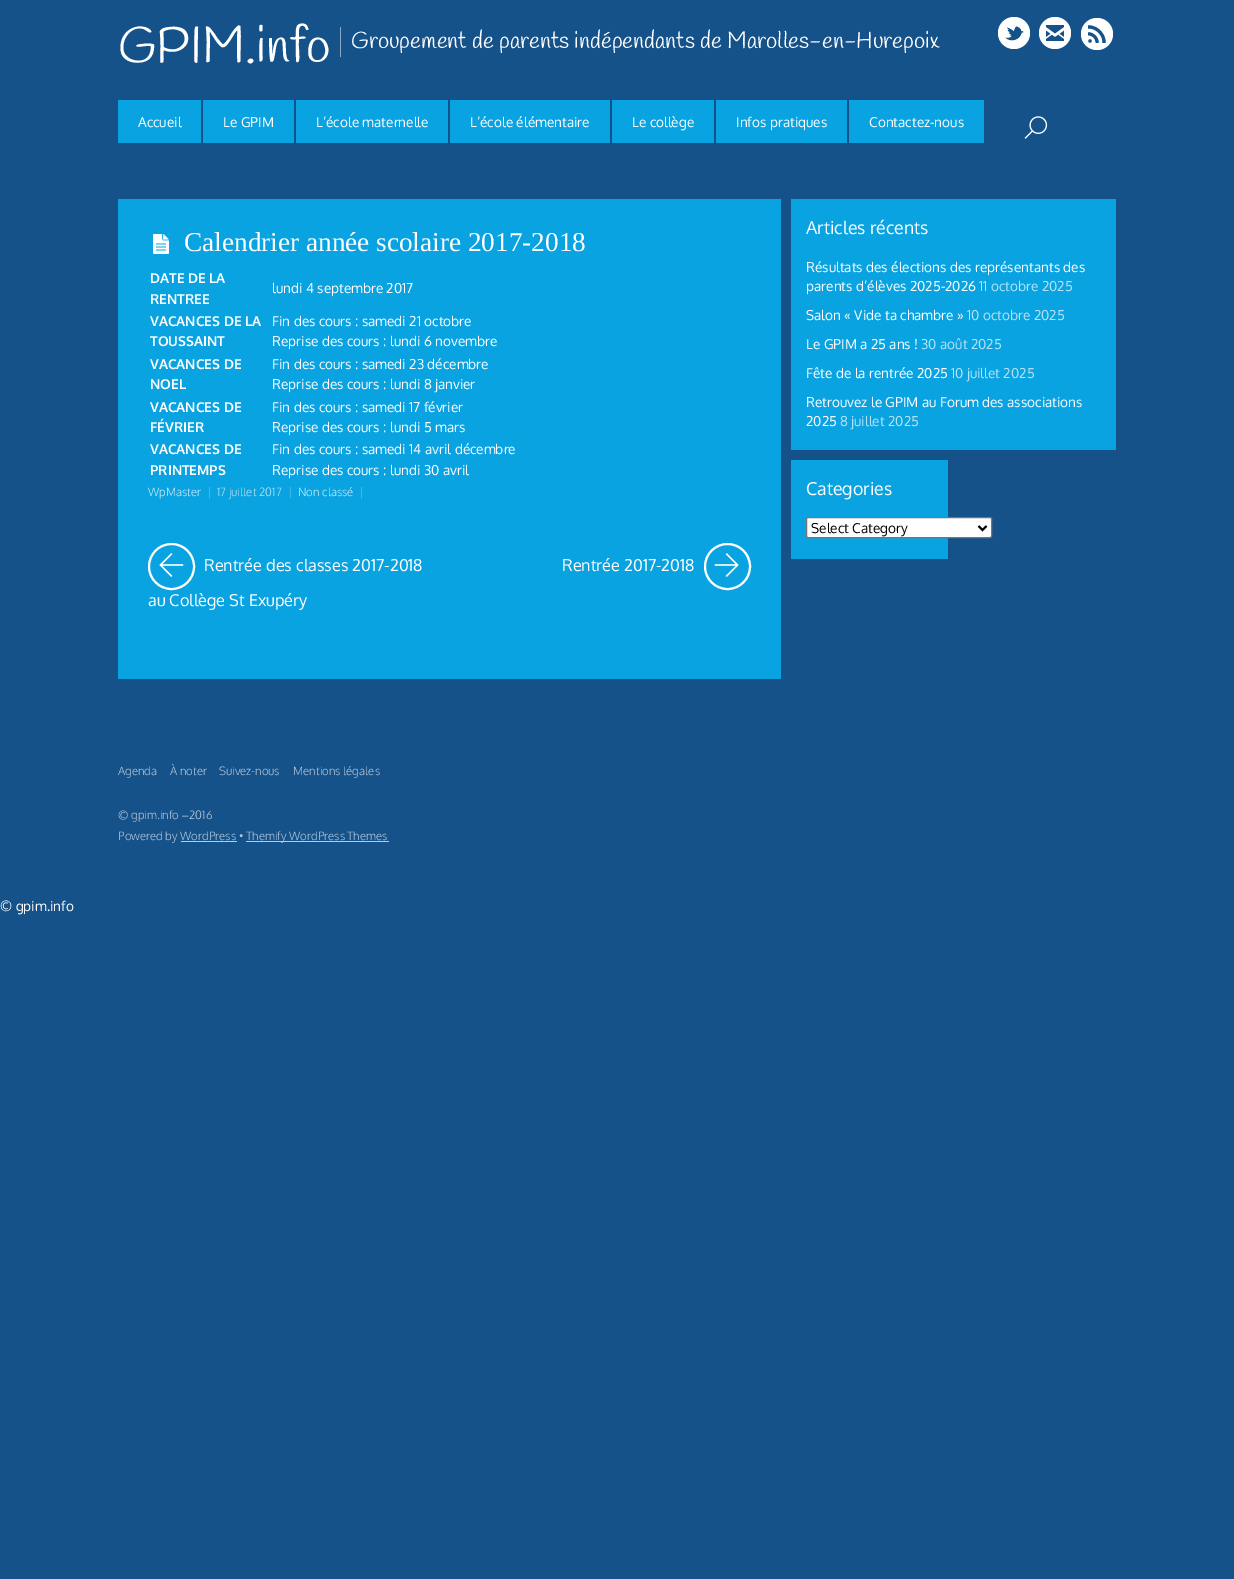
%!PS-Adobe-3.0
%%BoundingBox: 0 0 1234 1579
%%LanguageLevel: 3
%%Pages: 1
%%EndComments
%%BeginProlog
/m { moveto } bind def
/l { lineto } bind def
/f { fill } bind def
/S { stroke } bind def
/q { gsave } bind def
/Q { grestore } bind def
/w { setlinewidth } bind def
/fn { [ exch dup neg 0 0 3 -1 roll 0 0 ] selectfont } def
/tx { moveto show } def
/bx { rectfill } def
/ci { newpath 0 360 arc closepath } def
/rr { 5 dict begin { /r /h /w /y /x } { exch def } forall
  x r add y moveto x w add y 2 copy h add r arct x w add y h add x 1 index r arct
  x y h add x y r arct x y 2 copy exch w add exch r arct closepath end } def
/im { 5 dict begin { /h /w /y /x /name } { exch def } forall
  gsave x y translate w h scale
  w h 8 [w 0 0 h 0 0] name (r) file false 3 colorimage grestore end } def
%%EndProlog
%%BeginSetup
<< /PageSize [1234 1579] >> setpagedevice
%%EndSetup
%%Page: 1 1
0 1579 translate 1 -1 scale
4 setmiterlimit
0.086 0.322 0.541 setrgbcolor
0 0 1234 1579 bx
/Handlee-Regular 50 fn
1 setgray
(GPIM.info) 118 62 tx
0.545 0.663 0.773 setrgbcolor
340 27 1 30 bx
/Handlee-Regular 23 fn
1 setgray
(Groupement de parents indépendants de Marolles-en-Hurepoix) 351 48 tx
(image0.raw) 998 17 32 32 im
(image1.raw) 1039 17 32 32 im
(image2.raw) 1081 18 32 32 im
(image3.raw) 1024 116 24 23 im
0.035 0.639 0.886 setrgbcolor
118 100 83 43 bx
/Oxygen-Regular 13.6 fn
1 setgray
(Accueil) 138 127 tx
0.035 0.639 0.886 setrgbcolor
203 100 91 43 bx
1 setgray
(Le GPIM) 223 127 tx
0.035 0.639 0.886 setrgbcolor
296 100 152 43 bx
1 setgray
(L’école maternelle) 316 127 tx
0.035 0.639 0.886 setrgbcolor
450 100 160 43 bx
1 setgray
(L’école élémentaire) 470 127 tx
0.035 0.639 0.886 setrgbcolor
612 100 102 43 bx
1 setgray
(Le collège) 632 127 tx
0.035 0.639 0.886 setrgbcolor
716 100 131 43 bx
1 setgray
(Infos pratiques) 736 127 tx
0.035 0.639 0.886 setrgbcolor
849 100 135 43 bx
1 setgray
(Contactez-nous) 869 127 tx
0.035 0.639 0.886 setrgbcolor
118 199 663 480 bx
(image4.raw) 153 234 16 20 im
/LiberationSerif-Regular 27.25 fn
1 setgray
(Calendrier année scolaire 2017-2018) 184 251 tx
/Oxygen-Bold 13.6 fn
(DATE DE LA) 150 283 tx
(RENTREE) 150 304 tx
/Oxygen-Regular 13.6 fn
(lundi 4 septembre 2017) 272 293 tx
/Oxygen-Bold 13.6 fn
(VACANCES DE LA) 150 326 tx
(TOUSSAINT) 150 346 tx
/Oxygen-Regular 13.6 fn
(Fin des cours : samedi 21 octobre) 272 326 tx
(Reprise des cours : lundi 6 novembre) 272 346 tx
/Oxygen-Bold 13.6 fn
(VACANCES DE) 150 369 tx
(NOEL) 150 389 tx
/Oxygen-Regular 13.6 fn
(Fin des cours : samedi 23 décembre) 272 369 tx
(Reprise des cours : lundi 8 janvier) 272 389 tx
/Oxygen-Bold 13.6 fn
(VACANCES DE) 150 412 tx
(FÉVRIER) 150 432 tx
/Oxygen-Regular 13.6 fn
(Fin des cours : samedi 17 février) 272 412 tx
(Reprise des cours : lundi 5 mars) 272 432 tx
/Oxygen-Bold 13.6 fn
(VACANCES DE) 150 454 tx
(PRINTEMPS) 150 475 tx
/Oxygen-Regular 13.6 fn
(Fin des cours : samedi 14 avril décembre) 272 454 tx
(Reprise des cours : lundi 30 avril) 272 475 tx
/Oxygen-Light 11.5 fn
0.808 0.929 0.976 setrgbcolor
(WpMaster) 148 496 tx
0.42 0.784 0.933 setrgbcolor
(|) 207 496 tx
0.71 0.89 0.965 setrgbcolor
(17 juillet 2017) 217 496 tx
0.42 0.784 0.933 setrgbcolor
(|) 288 496 tx
0.808 0.929 0.976 setrgbcolor
(Non classé) 298 496 tx
0.42 0.784 0.933 setrgbcolor
(|) 359 496 tx
1 setgray
2 w
171.5 566.5 22.5 ci S
(image5.raw) 159 553 25 24 im
/Oxygen-Regular 16.25 fn
(Rentrée des classes 2017-2018) 204 571 tx
(au Collège St Exupéry) 148 606 tx
(Rentrée 2017-2018) 562 571 tx
727.5 566.5 22.5 ci S
(image6.raw) 714 553 25 24 im
0.035 0.639 0.886 setrgbcolor
791 199 325 251 bx
/Oxygen-Regular 17.75 fn
1 setgray
(Articles récents) 806 234 tx
/Oxygen-Regular 13.6 fn
(Résultats des élections des représentants des) 806 272 tx
(parents d’élèves 2025-2026) 806 291 tx
0.71 0.89 0.965 setrgbcolor
(11 octobre 2025) 979 291 tx
1 setgray
(Salon « Vide ta chambre ») 806 320 tx
0.71 0.89 0.965 setrgbcolor
(10 octobre 2025) 967 320 tx
1 setgray
(Le GPIM a 25 ans !) 806 349 tx
0.71 0.89 0.965 setrgbcolor
(30 août 2025) 921 349 tx
1 setgray
(Fête de la rentrée 2025) 806 378 tx
0.71 0.89 0.965 setrgbcolor
(10 juillet 2025) 951 378 tx
1 setgray
(Retrouvez le GPIM au Forum des associations) 806 407 tx
(2025) 806 426 tx
0.71 0.89 0.965 setrgbcolor
(8 juillet 2025) 840 426 tx
0.035 0.639 0.886 setrgbcolor
791 460 157 99 bx
/Oxygen-Regular 17.75 fn
1 setgray
(Categories) 806 495 tx
806.5 517.5 185 20 1.5 rr q f Q
0.463 setgray
1 w
S
0 setgray
2 w
978.5 526 m 982.5 530 l 986.5 526 l S
/Oxygen-Regular 13.6 fn
(Select Category) 811 533 tx
/Oxygen-Light 11.5 fn
0.725 0.796 0.863 setrgbcolor
(Agenda) 118 775 tx
(À noter) 170 775 tx
(Suivez-nous) 219 775 tx
(Mentions légales) 293 775 tx
(© gpim.info) 118 819 tx
/LiberationSans-Regular 11.5 fn
(–) 182 819 tx
/Oxygen-Light 11.5 fn
(2016) 189 819 tx
(Powered by WordPress •) 118 840 tx
246 841 143 1 bx
(Themify WordPress Themes) 246 840 tx
181 841 56 1 bx
/Oxygen-Regular 13.6 fn
1 setgray
(© gpim.info) 0 911 tx
showpage
%%EOF
